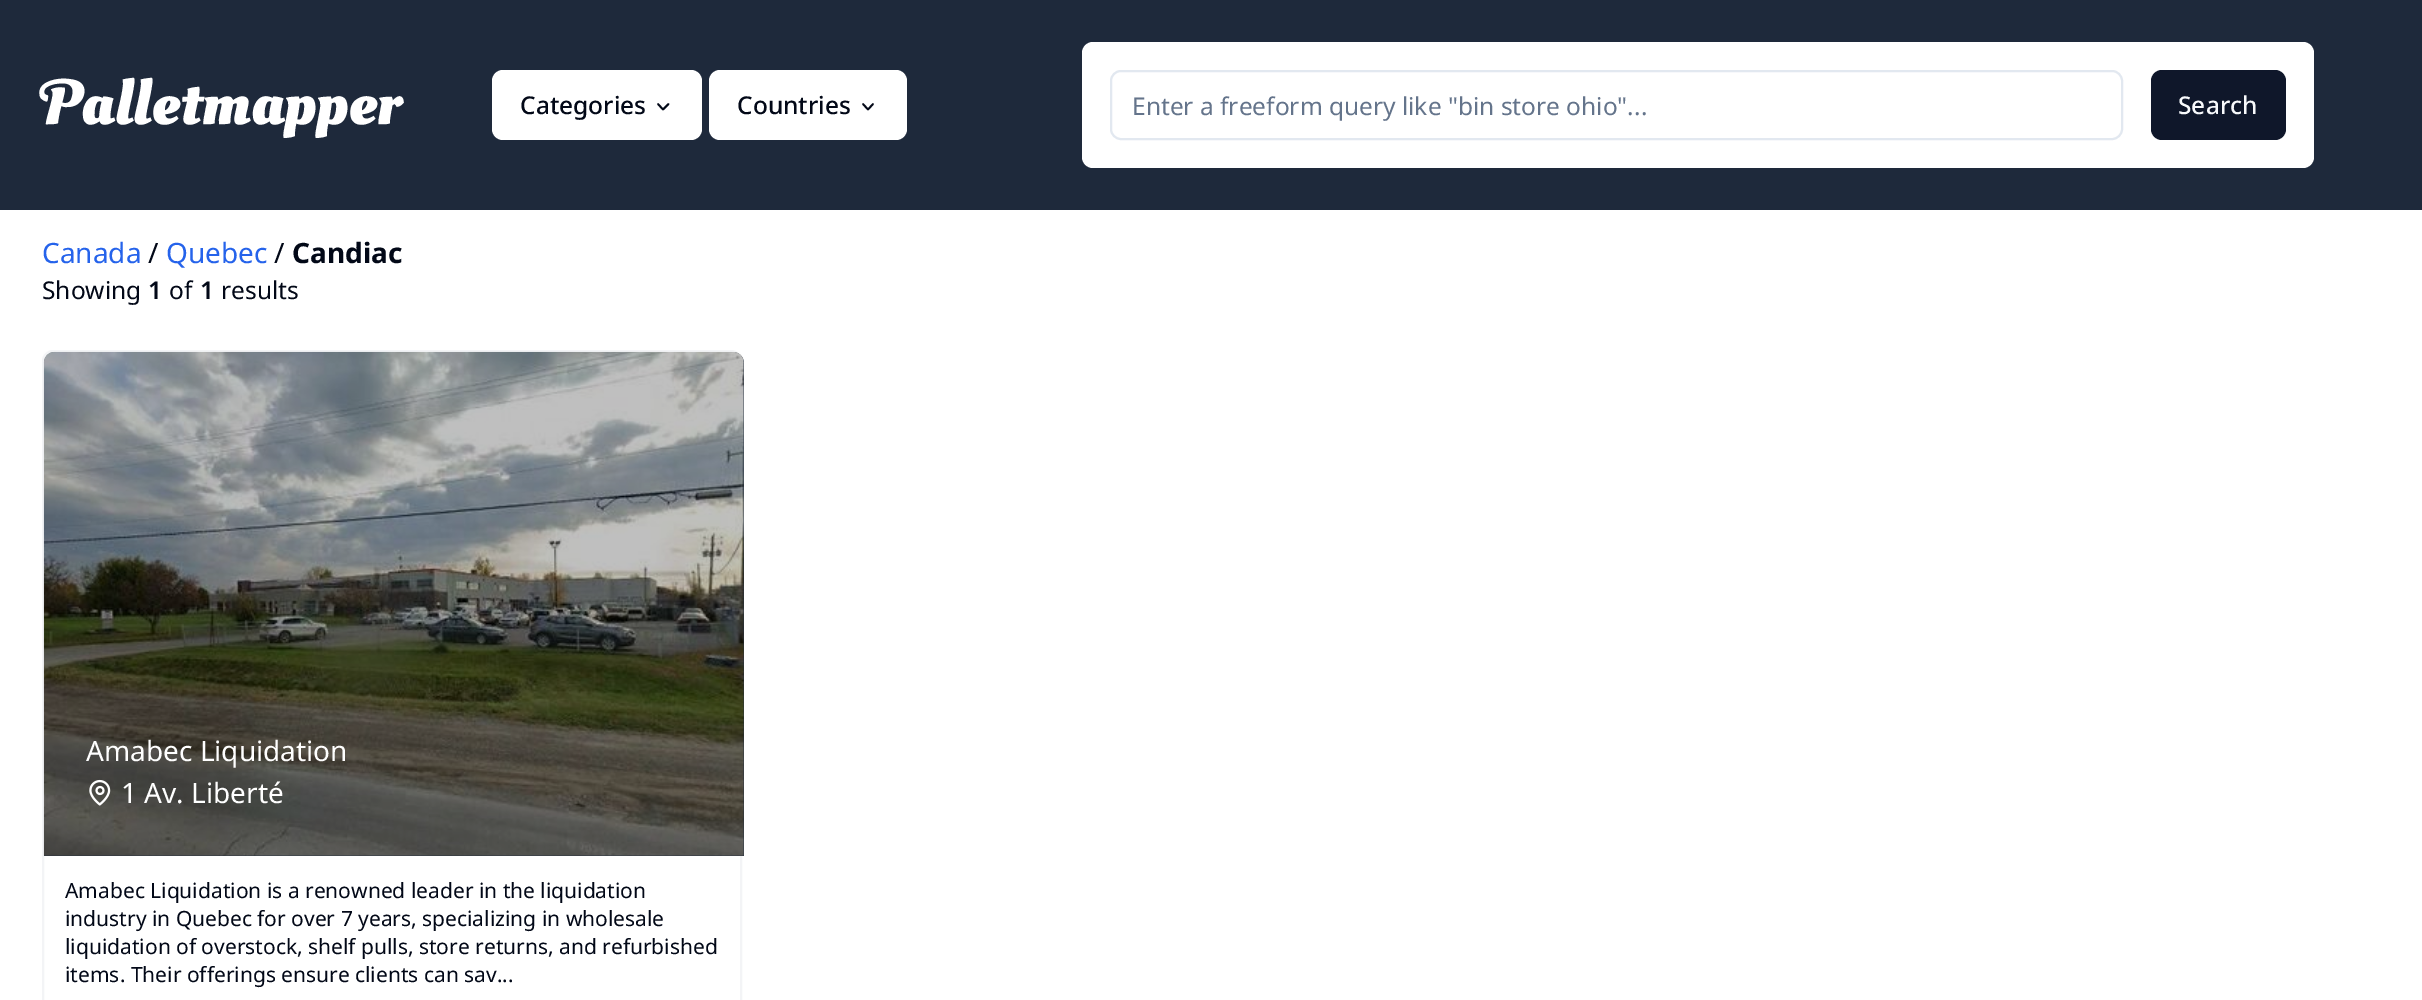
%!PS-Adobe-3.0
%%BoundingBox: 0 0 2422 1000
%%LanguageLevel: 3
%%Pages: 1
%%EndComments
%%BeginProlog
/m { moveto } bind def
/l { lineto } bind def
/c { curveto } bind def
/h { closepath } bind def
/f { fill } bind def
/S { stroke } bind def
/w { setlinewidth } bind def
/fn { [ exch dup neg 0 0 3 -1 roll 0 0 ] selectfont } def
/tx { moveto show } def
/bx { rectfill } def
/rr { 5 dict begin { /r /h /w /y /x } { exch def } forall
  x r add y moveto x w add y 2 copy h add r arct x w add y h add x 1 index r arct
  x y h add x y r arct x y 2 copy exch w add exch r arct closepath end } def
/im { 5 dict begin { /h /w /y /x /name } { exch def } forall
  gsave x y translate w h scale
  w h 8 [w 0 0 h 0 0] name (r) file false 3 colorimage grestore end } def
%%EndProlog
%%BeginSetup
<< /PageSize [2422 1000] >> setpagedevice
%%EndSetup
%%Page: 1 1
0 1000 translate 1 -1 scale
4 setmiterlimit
1 setgray
0 0 2422 1000 bx
0.118 0.161 0.231 setrgbcolor
0 0 2422 210 bx
/OleoScriptSwashCaps-Bold 63 fn
1 setgray
(Palletmapper) 42 124 tx
492 70 210 70 11 rr f
/NotoSans-Medium 24.5 fn
0.008 0.031 0.09 setrgbcolor
(Categories) 520 114 tx
1.8 w
1 setlinecap
1 setlinejoin
658 104 m 663 109.5 l 668.5 104 l S
1 setgray
709 70 198 70 11 rr f
0.008 0.031 0.09 setrgbcolor
(Countries) 737 114 tx
863 104 m 868 109.5 l 873 104 l S
1 setgray
1082 42 1232 126 11 rr f
0.886 0.91 0.941 setrgbcolor
2 w
0 setlinecap
0 setlinejoin
1111 71 1011 68 10 rr S
/NotoSans-Regular 24.5 fn
0.392 0.455 0.545 setrgbcolor
(Enter a freeform query like "bin store ohio"...) 1132 115 tx
0.059 0.09 0.165 setrgbcolor
2151 70 135 70 11 rr f
/NotoSans-Medium 24.5 fn
0.973 0.98 0.988 setrgbcolor
(Search) 2178 114 tx
/NotoSans-Regular 28 fn
0.145 0.388 0.922 setrgbcolor
(Canada) 42 263 tx
0.008 0.031 0.09 setrgbcolor
(/) 148 263 tx
0.145 0.388 0.922 setrgbcolor
(Quebec) 166 263 tx
0.008 0.031 0.09 setrgbcolor
(/) 274 263 tx
/NotoSans-Bold 28 fn
(Candiac) 292 263 tx
/NotoSans-Regular 24.5 fn
(Showing) 42 299 tx
/NotoSans-SemiBold 24.5 fn
(1) 148 299 tx
/NotoSans-Regular 24.5 fn
(of) 169 299 tx
/NotoSans-SemiBold 24.5 fn
(1) 200 299 tx
/NotoSans-Regular 24.5 fn
(results) 221 299 tx
0.953 0.957 0.965 setrgbcolor
43 351 698 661 10 rr S
0.149 0.192 0.251 setrgbcolor
55 352 m 733 352 l 739 352 744 357 744 363 c 744 856 l 44 856 l 44 363 l 44 357 49 352 55 352 c h f
(image0.raw) 43 351 701 505 im
/NotoSans-Regular 28 fn
1 setgray
(Amabec Liquidation) 86 761 tx
(image1.raw) 89 779 22 27 im
(1 Av. Liberté) 121 803 tx
/NotoSans-Regular 21 fn
0.008 0.031 0.09 setrgbcolor
(Amabec Liquidation is a renowned leader in the liquidation) 65 898 tx
(industry in Quebec for over 7 years, specializing in wholesale) 65 926 tx
(liquidation of overstock, shelf pulls, store returns, and refurbished) 65 954 tx
(items. Their offerings ensure clients can sav...) 65 982 tx
showpage
%%EOF
